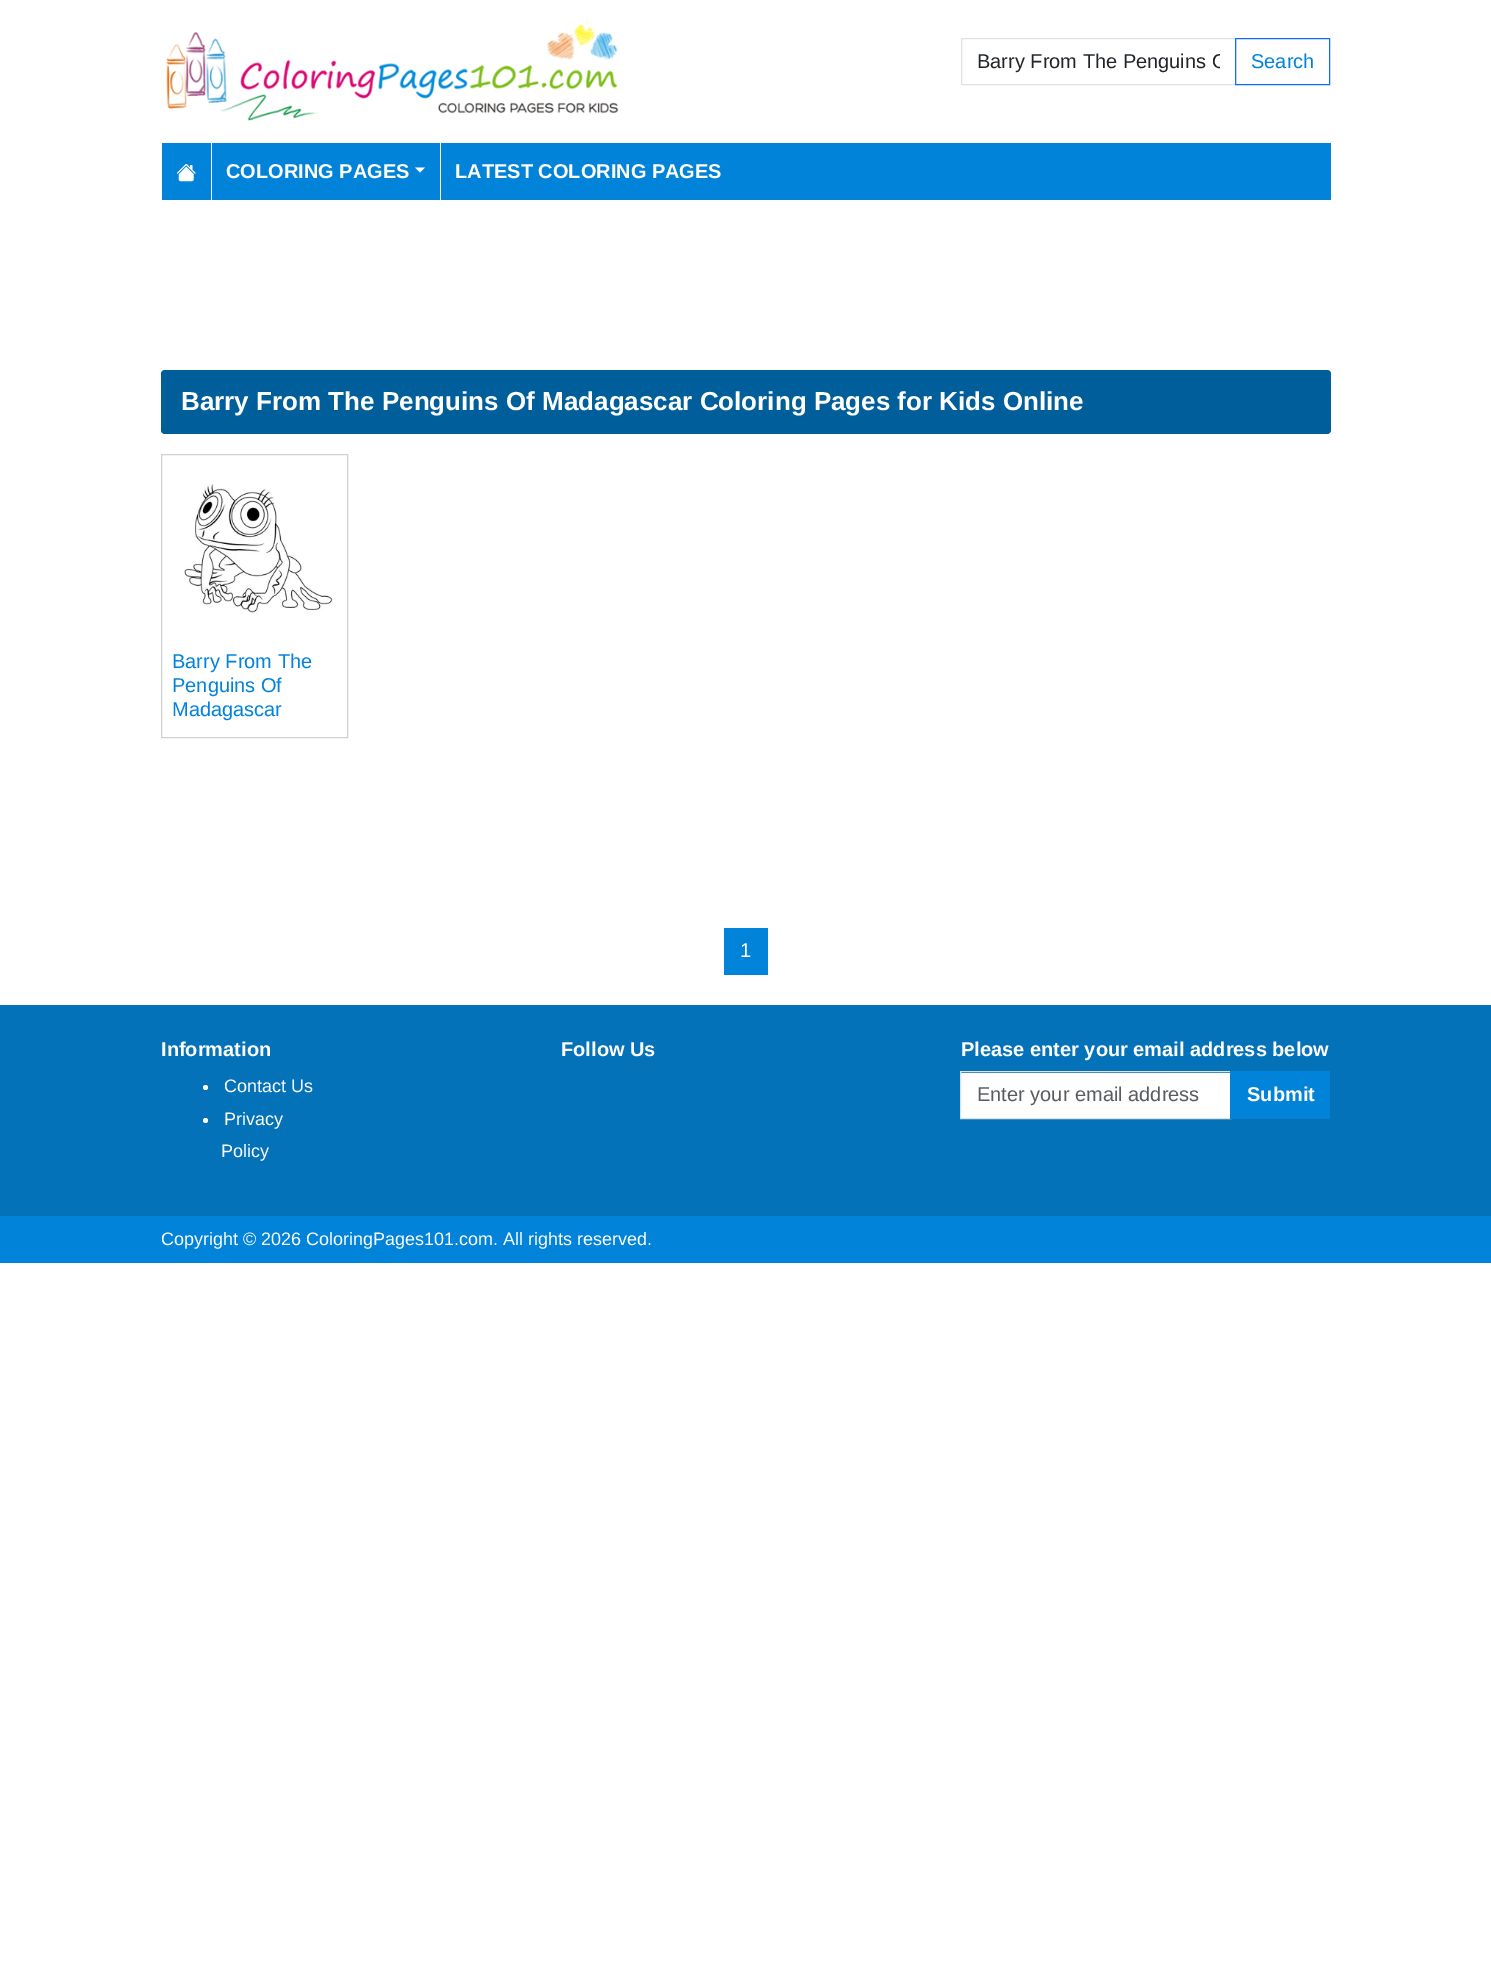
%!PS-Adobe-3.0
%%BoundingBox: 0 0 1491 1986
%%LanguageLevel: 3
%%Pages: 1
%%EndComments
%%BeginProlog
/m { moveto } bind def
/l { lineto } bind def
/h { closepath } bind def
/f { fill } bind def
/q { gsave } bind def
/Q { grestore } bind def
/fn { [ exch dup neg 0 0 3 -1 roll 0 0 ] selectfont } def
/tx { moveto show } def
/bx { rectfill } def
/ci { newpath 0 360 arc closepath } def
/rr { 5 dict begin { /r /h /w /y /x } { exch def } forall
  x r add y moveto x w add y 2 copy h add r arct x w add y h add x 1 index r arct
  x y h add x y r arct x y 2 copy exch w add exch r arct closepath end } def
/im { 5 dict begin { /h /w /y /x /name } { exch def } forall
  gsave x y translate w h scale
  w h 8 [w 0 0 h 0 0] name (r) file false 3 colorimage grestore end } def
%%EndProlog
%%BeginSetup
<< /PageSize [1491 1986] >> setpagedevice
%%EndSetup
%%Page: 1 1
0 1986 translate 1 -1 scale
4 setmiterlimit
1 setgray
0 0 1491 1986 bx
(image0.raw) 166 24 453 97 im
0.871 0.886 0.902 setrgbcolor
961.5 38.5 274 46 rectstroke
q
978 46 242 30 rectclip
/LiberationSans-Regular 20 fn
0.129 0.145 0.161 setrgbcolor
(Barry From The Penguins O) 977 68 tx
Q
0.051 0.431 0.992 setrgbcolor
1235.5 38.5 94 46 rectstroke
/LiberationSans-Regular 20 fn
0 0.514 0.847 setrgbcolor
(Search) 1251 68 tx
162 143 1169 57 bx
(image1.raw) 176 164 20 18 im
1 setgray
211 143 1 57 bx
/LiberationSans-Bold 20 fn
(COLORING PAGES) 226 178 tx
415 167.5 m 425 167.5 l 420 172.5 l h f
440 143 1 57 bx
(LATEST COLORING PAGES) 455 178 tx
0 0.369 0.608 setrgbcolor
161 370 1170 64 4 rr f
/LiberationSans-Bold 26 fn
1 setgray
(Barry From The Penguins Of Madagascar Coloring Pages for Kids Online) 181 410 tx
0.824 setgray
161.5 454.5 186 283 rectstroke
(image2.raw) 184 484 149 130 im
/LiberationSans-Regular 20 fn
0 0.514 0.847 setrgbcolor
(Barry From The) 172 668 tx
(Penguins Of) 172 692 tx
(Madagascar) 172 716 tx
724 928 44 47 bx
1 setgray
(1) 740 957 tx
0.012 0.447 0.722 setrgbcolor
0 1005 1491 211 bx
/LiberationSans-Bold 20 fn
1 setgray
(Information) 161 1056 tx
205.5 1087.5 2.5 ci f
/LiberationSans-Regular 18 fn
(Contact Us) 224 1092 tx
205.5 1120.5 2.5 ci f
(Privacy) 224 1125 tx
(Policy) 221 1157 tx
/LiberationSans-Bold 20 fn
(Follow Us) 561 1056 tx
(Please enter your email address below) 961 1056 tx
961 1073 269 45 bx
0.871 0.886 0.902 setrgbcolor
960.5 1071.5 270 47 rectstroke
/LiberationSans-Regular 20 fn
0.349 0.361 0.373 setrgbcolor
(Enter your email address) 977 1101 tx
0 0.514 0.847 setrgbcolor
1230 1071 100 48 bx
/LiberationSans-Bold 20 fn
1 setgray
(Submit) 1247 1101 tx
0 0.514 0.847 setrgbcolor
0 1216 1491 47 bx
/LiberationSans-Regular 18 fn
1 setgray
(Copyright © 2026 ColoringPages101.com. All rights reserved.) 161 1245 tx
showpage
%%EOF
